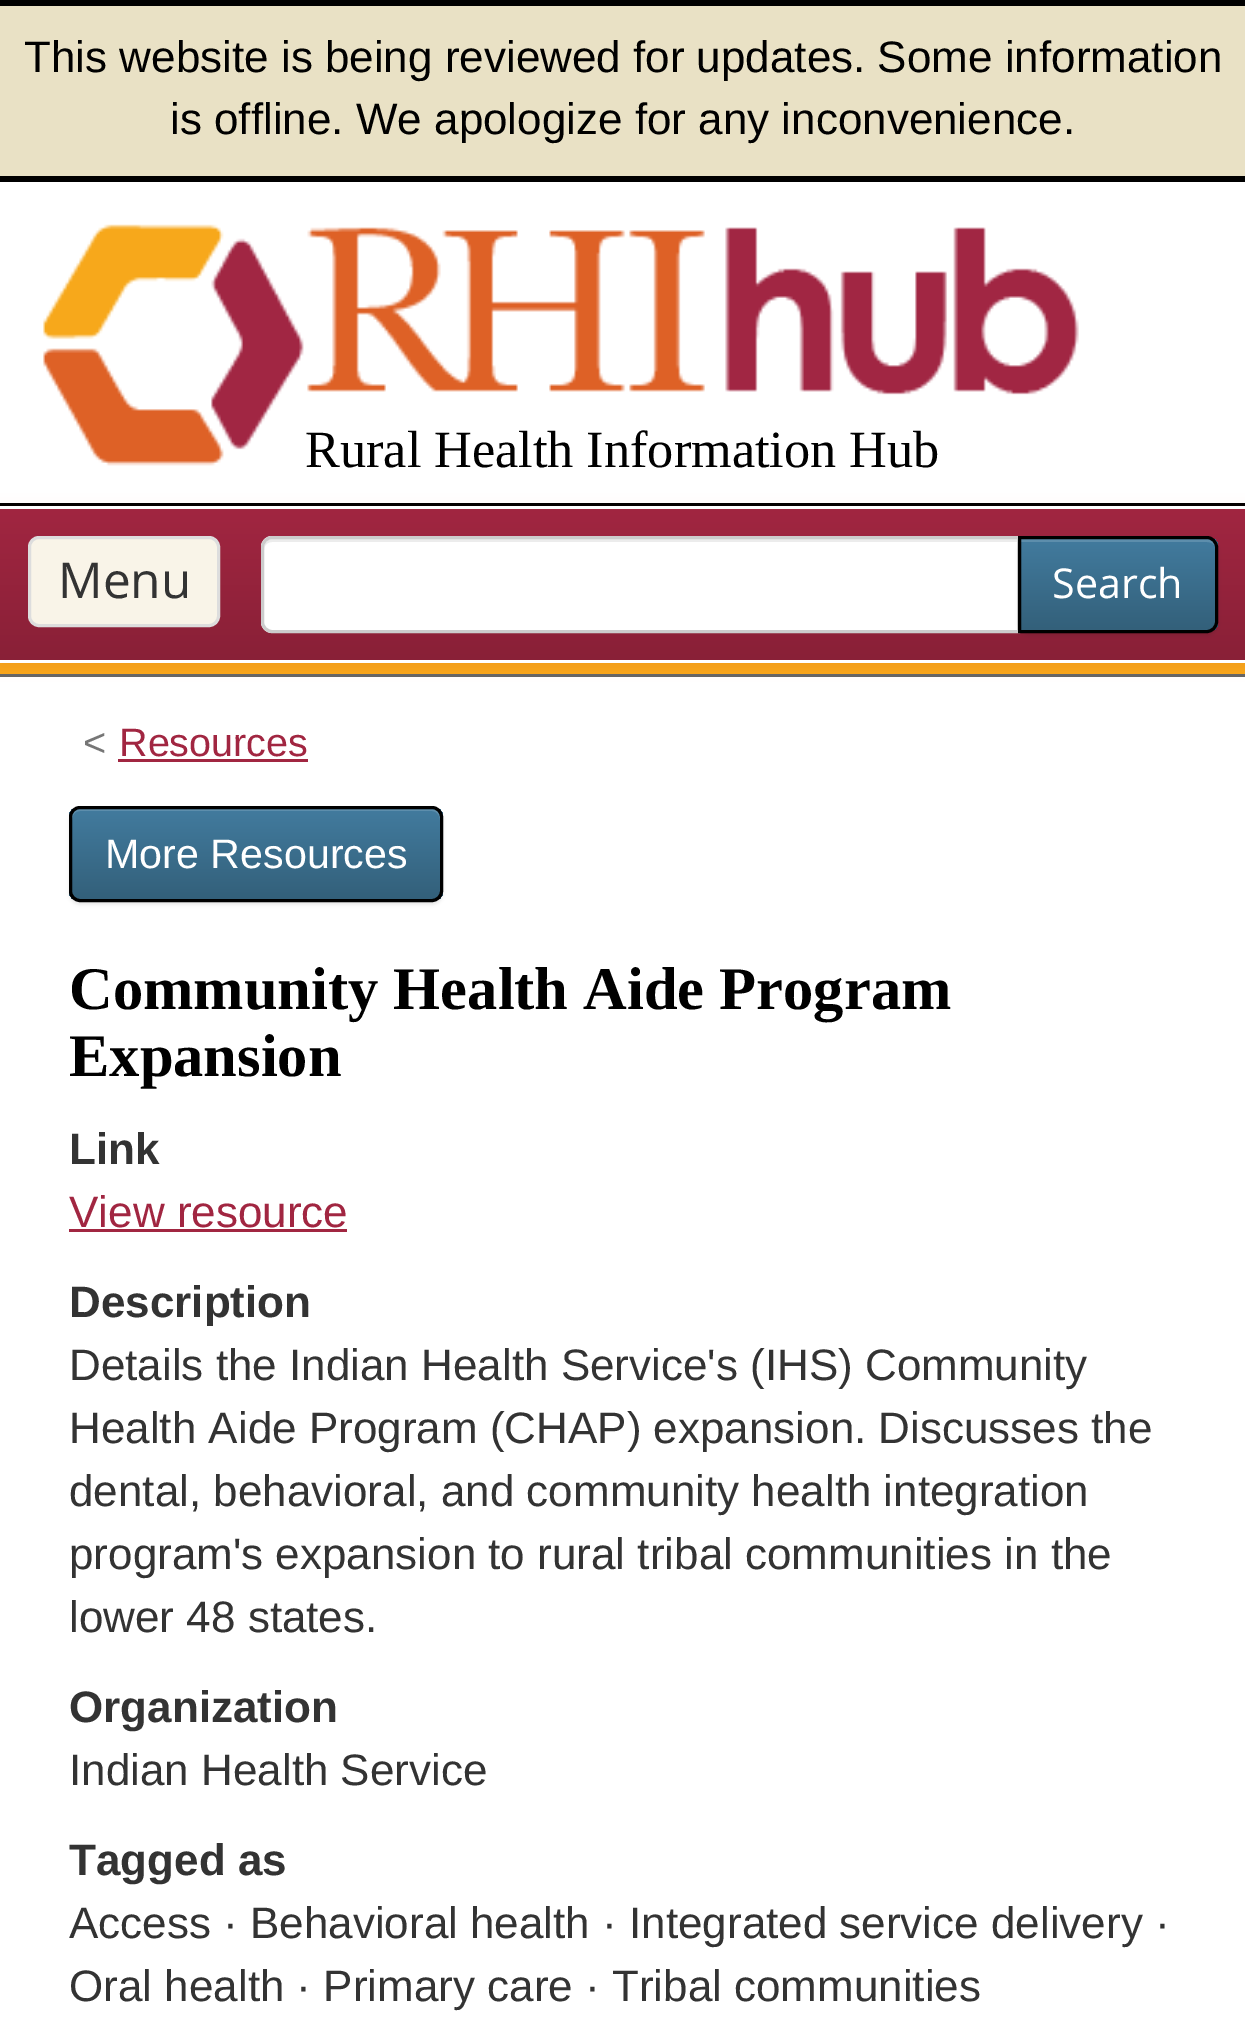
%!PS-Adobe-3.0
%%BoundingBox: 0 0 1245 2029
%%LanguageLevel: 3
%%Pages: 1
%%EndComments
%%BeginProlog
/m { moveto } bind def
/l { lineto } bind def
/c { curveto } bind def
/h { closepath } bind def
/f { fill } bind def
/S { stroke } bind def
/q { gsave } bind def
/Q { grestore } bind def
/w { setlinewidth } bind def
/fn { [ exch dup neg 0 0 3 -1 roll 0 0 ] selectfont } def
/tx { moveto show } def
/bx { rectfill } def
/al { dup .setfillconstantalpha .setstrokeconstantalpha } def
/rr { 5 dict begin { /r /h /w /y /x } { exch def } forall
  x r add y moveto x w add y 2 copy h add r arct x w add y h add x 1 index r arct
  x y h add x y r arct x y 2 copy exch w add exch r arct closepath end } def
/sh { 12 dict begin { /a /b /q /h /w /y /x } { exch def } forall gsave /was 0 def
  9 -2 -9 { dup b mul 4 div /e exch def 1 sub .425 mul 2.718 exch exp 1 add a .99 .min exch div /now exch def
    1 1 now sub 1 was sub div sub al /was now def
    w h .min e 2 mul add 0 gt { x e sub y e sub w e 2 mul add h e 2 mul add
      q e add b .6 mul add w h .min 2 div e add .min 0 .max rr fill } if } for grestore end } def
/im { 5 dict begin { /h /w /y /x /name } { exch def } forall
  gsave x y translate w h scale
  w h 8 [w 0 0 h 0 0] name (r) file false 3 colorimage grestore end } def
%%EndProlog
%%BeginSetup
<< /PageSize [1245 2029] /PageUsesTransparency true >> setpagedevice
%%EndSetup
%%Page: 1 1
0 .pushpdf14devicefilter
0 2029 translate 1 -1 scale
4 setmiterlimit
1 setgray
0 0 1245 2029 bx
0 setgray
0 503 1245 3 bx
0.914 0.882 0.773 setrgbcolor
0 6 1245 170 bx
0 setgray
0 0 1245 6 bx
0 176 1245 6 bx
/LiberationSans-Regular 44 fn
(This website is being reviewed for updates. Some information) 24 72 tx
(is offline. We apologize for any inconvenience.) 170 134 tx
(image0.raw) 43 224 1036 242 im
/LiberationSerif-Regular 52.25 fn
(Rural Health Information Hub) 305 467 tx
0.4 setgray
0 674 m 0 677 l 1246 677 l 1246 509 l 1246 674 l h f
0.969 0.659 0.106 setrgbcolor
0 663 1245 11 bx
0.588 0.02 0.114 setrgbcolor
0 509 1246 157 0 7 0.07 sh
q 0 509 m 1245 509 l 1245 660 l 0 660 l h clip newpath
<< /ShadingType 2 /ColorSpace /DeviceRGB /Coords [623 509 623 660] /Extend [true true] /Function << /FunctionType 2 /Domain [0 1] /C0 [0.631 0.149 0.255] /C1 [0.537 0.125 0.216] /N 1 >> >> shfill Q
1 setgray
0 506 1245 3 bx
0 660 1245 3 bx
0.976 0.957 0.91 setrgbcolor
29.5 537.5 189 88 9.5 rr q f Q
0.867 setgray
3 w
S
/OpenSans-Regular 49.5 fn
0.2 setgray
(Menu) 58 598 tx
1 setgray
272 536 m 1020 536 l 1020 633 l 272 633 l 266 633 261 628 261 622 c 261 547 l 261 541 266 536 272 536 c h f
0.925 setgray
272 542 m 1018 542 l 1018 539 l 272 539 l 268 539 264 543 264 547 c 264 550 l 264 545 268 542 272 542 c h f
0.8 setgray
272 537.5 m 1018.5 537.5 l 1018.5 631.5 l 272 631.5 l 267 631.5 262.5 627 262.5 622 c 262.5 547 l 262.5 542 267 537.5 272 537.5 c h S
0 setgray
1018 539 200 96 11 1.5 0.07 sh
q
1018 536 m 1207 536 l 1213 536 1218 541 1218 547 c 1218 622 l 1218 628 1213 633 1207 633 c 1018 633 l h clip newpath
q 1021 539 m 1218 539 l 1218 630 l 1021 630 l h clip newpath
<< /ShadingType 2 /ColorSpace /DeviceRGB /Coords [1118 539 1118 630] /Extend [true true] /Function << /FunctionType 2 /Domain [0 1] /C0 [0.259 0.482 0.62] /C1 [0.2 0.376 0.478] /N 1 >> >> shfill Q
Q
0.15 al
1 setgray
1020 542 m 1207 542 l 1212 542 1216 545 1216 550 c 1216 547 l 1216 543 1212 539 1208 539 c 1020 539 l h f
1 al
0 setgray
1019.5 537.5 m 1207 537.5 l 1212 537.5 1216.5 542 1216.5 547 c 1216.5 622 l 1216.5 627 1212 631.5 1207 631.5 c 1019.5 631.5 l h S
/OpenSans-Regular 41.25 fn
1 setgray
(Search) 1052 598 tx
/LiberationSans-Regular 39.5 fn
0.463 setgray
(<) 83 756 tx
0.631 0.149 0.255 setrgbcolor
(Resources) 119 756 tx
118 759 190 3 bx
0 setgray
69 809 374 96 11 1.5 0.07 sh
q
69 806 374 96 11 rr clip newpath
q 69 809 m 443 809 l 443 899 l 69 899 l h clip newpath
<< /ShadingType 2 /ColorSpace /DeviceRGB /Coords [256 809 256 899] /Extend [true true] /Function << /FunctionType 2 /Domain [0 1] /C0 [0.259 0.482 0.62] /C1 [0.2 0.376 0.478] /N 1 >> >> shfill Q
Q
0.15 al
1 setgray
80 811 m 432 811 l 436 811 440 815 440 820 c 440 815 439 810 434 809 c 78 809 l 73 810 72 815 72 820 c 72 815 75 811 80 811 c h f
1 al
0 setgray
70.5 807.5 371 93 9.5 rr S
/LiberationSans-Regular 41.25 fn
1 setgray
(More Resources) 105 868 tx
/LiberationSerif-Bold 60.5 fn
0 setgray
(Community Health Aide Program) 69 1009 tx
(Expansion) 69 1076 tx
/LiberationSans-Bold 44 fn
0.2 setgray
(Link) 69 1164 tx
/LiberationSans-Regular 44 fn
0.631 0.149 0.255 setrgbcolor
(View resource) 69 1227 tx
69 1229 278 3 bx
/LiberationSans-Bold 44 fn
0.2 setgray
(Description) 69 1317 tx
/LiberationSans-Regular 44 fn
(Details the Indian Health Service's \(IHS\) Community) 69 1380 tx
(Health Aide Program \(CHAP\) expansion. Discusses the) 69 1443 tx
(dental, behavioral, and community health integration) 69 1506 tx
(program's expansion to rural tribal communities in the) 69 1569 tx
(lower 48 states.) 69 1632 tx
/LiberationSans-Bold 44 fn
(Organization) 69 1722 tx
/LiberationSans-Regular 44 fn
(Indian Health Service) 69 1785 tx
/LiberationSans-Bold 44 fn
(Tagged as) 69 1875 tx
/LiberationSans-Regular 44 fn
(Access · Behavioral health · Integrated service delivery ·) 69 1938 tx
(Oral health · Primary care · Tribal communities) 69 2001 tx
.poppdf14devicefilter showpage
%%EOF
